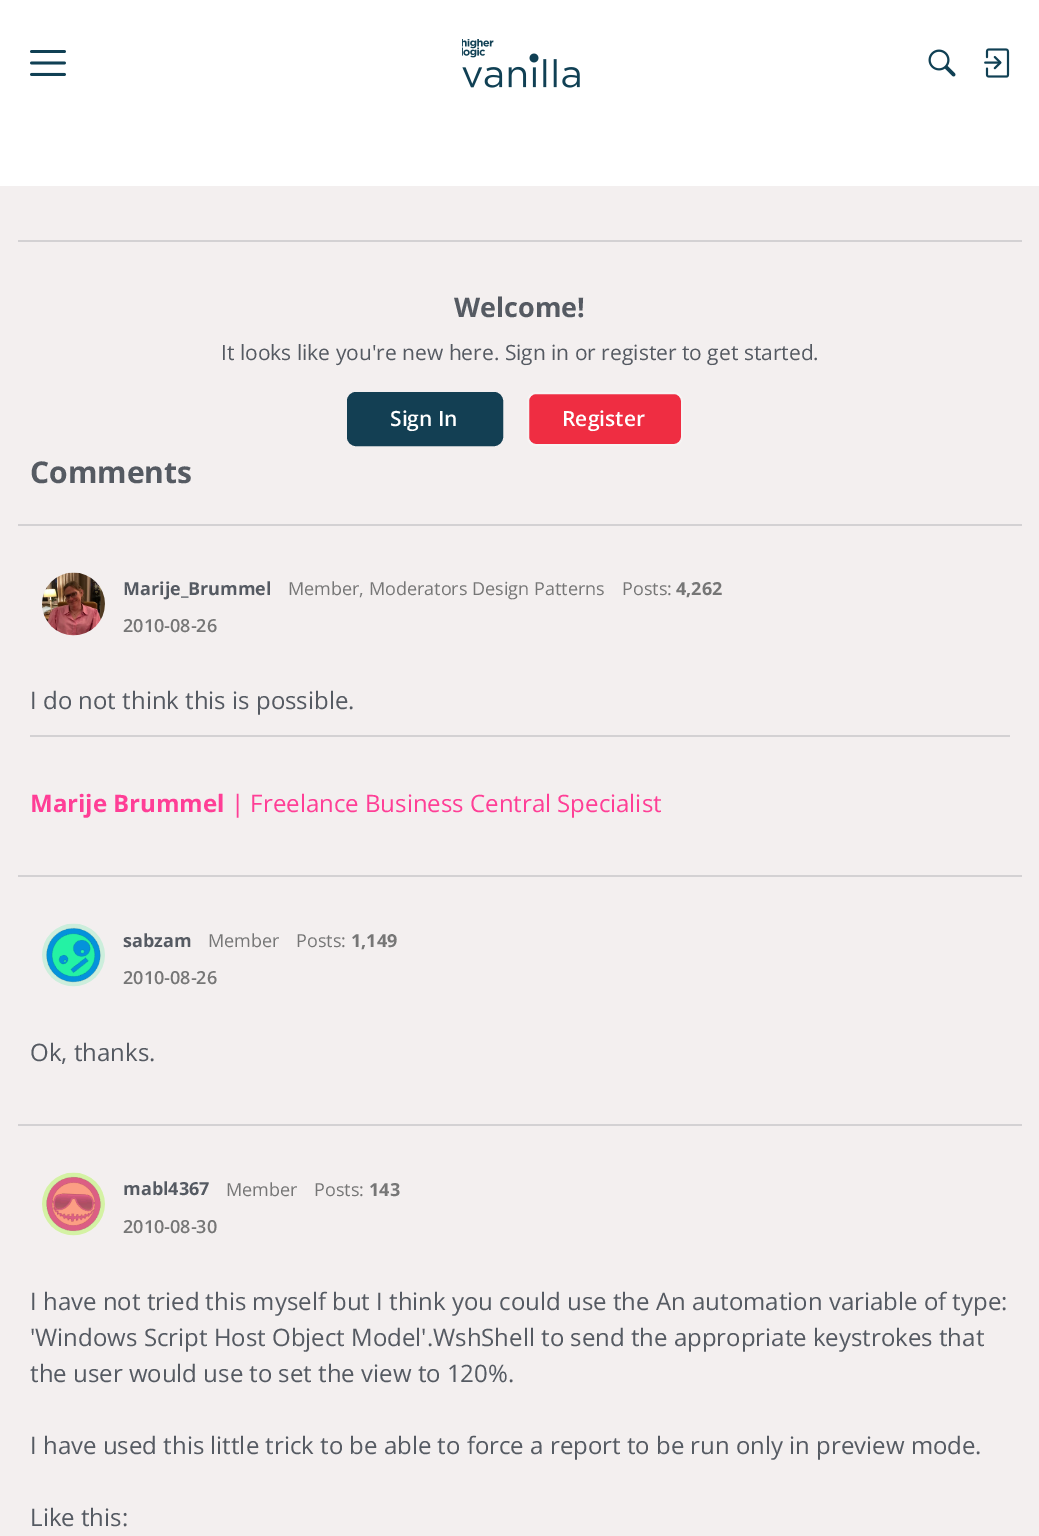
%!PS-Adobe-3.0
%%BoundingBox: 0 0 1039 1536
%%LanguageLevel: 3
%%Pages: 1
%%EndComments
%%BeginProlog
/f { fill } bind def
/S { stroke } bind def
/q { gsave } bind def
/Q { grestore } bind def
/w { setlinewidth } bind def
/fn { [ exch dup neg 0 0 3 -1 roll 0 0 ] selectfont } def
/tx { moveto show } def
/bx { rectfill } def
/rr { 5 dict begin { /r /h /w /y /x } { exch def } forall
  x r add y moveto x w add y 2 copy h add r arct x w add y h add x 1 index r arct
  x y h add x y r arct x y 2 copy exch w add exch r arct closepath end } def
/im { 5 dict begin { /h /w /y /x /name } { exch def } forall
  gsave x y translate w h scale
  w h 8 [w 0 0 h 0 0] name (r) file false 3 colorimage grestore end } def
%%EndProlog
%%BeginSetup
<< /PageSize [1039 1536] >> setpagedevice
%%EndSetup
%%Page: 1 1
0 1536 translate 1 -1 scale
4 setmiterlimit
0.953 0.937 0.937 setrgbcolor
0 0 1039 1536 bx
1 setgray
0 0 1039 186 bx
(image0.raw) 30 50 36 26 im
(image1.raw) 462 39 118 49 im
(image2.raw) 928 49 28 28 im
(image3.raw) 984 48 26 30 im
0.827 0.82 0.827 setrgbcolor
18 240 1004 2 bx
/OpenSans-Bold 27 fn
0.333 0.353 0.384 setrgbcolor
(Welcome!) 454 317 tx
/OpenSans-Regular 21 fn
(It looks like you're new here. Sign in or register to get started.) 221 360 tx
0.075 0.247 0.325 setrgbcolor
348 393 154 52 8 rr q f Q
2 w
S
/OpenSans-SemiBold 21 fn
1 setgray
(Sign In) 390 426 tx
0.937 0.176 0.259 setrgbcolor
528 393 154 52 8 rr q f Q
0.965 0.953 0.953 setrgbcolor
S
1 setgray
(Register) 562 426 tx
/OpenSans-Bold 30 fn
0.333 0.353 0.384 setrgbcolor
(Comments) 30 483 tx
0.827 0.82 0.827 setrgbcolor
18 524 1004 2 bx
(image4.raw) 42 572 63 64 im
/OpenSans-Bold 18 fn
0.333 0.353 0.384 setrgbcolor
(Marije_Brummel) 123 595 tx
/OpenSans-Regular 18 fn
0.463 setgray
(Member, Moderators Design Patterns) 288 595 tx
(Posts:) 622 595 tx
/OpenSans-Bold 18 fn
(4,262) 676 595 tx
/OpenSans-SemiBold 18 fn
(2010-08-26) 123 632 tx
/OpenSans-Regular 24 fn
0.333 0.353 0.384 setrgbcolor
(I do not think this is possible.) 30 709 tx
0.827 0.82 0.827 setrgbcolor
30 735 980 2 bx
/OpenSans-Bold 24 fn
1 0.243 0.588 setrgbcolor
(Marije Brummel) 30 812 tx
/OpenSans-Regular 24 fn
(| Freelance Business Central Specialist) 231 812 tx
0.827 0.82 0.827 setrgbcolor
18 875 1004 2 bx
(image5.raw) 42 923 63 64 im
/OpenSans-Bold 18 fn
0.333 0.353 0.384 setrgbcolor
(sabzam) 123 947 tx
/OpenSans-Regular 18 fn
0.463 setgray
(Member) 208 947 tx
(Posts:) 296 947 tx
/OpenSans-Bold 18 fn
(1,149) 351 947 tx
/OpenSans-SemiBold 18 fn
(2010-08-26) 123 984 tx
/OpenSans-Regular 24 fn
0.333 0.353 0.384 setrgbcolor
(Ok, thanks.) 30 1061 tx
0.827 0.82 0.827 setrgbcolor
18 1124 1004 2 bx
(image6.raw) 42 1172 63 64 im
/OpenSans-Bold 18 fn
0.333 0.353 0.384 setrgbcolor
(mabl4367) 123 1195 tx
/OpenSans-Regular 18 fn
0.463 setgray
(Member) 226 1196 tx
(Posts:) 314 1196 tx
/OpenSans-Bold 18 fn
(143) 369 1196 tx
/OpenSans-SemiBold 18 fn
(2010-08-30) 123 1233 tx
/OpenSans-Regular 24 fn
0.333 0.353 0.384 setrgbcolor
(I have not tried this myself but I think you could use the An automation variable of type:) 30 1310 tx
('Windows Script Host Object Model'.WshShell to send the appropriate keystrokes that) 30 1346 tx
(the user would use to set the view to 120%.) 30 1382 tx
(I have used this little trick to be able to force a report to be run only in preview mode.) 30 1454 tx
(Like this:) 30 1526 tx
showpage
%%EOF
